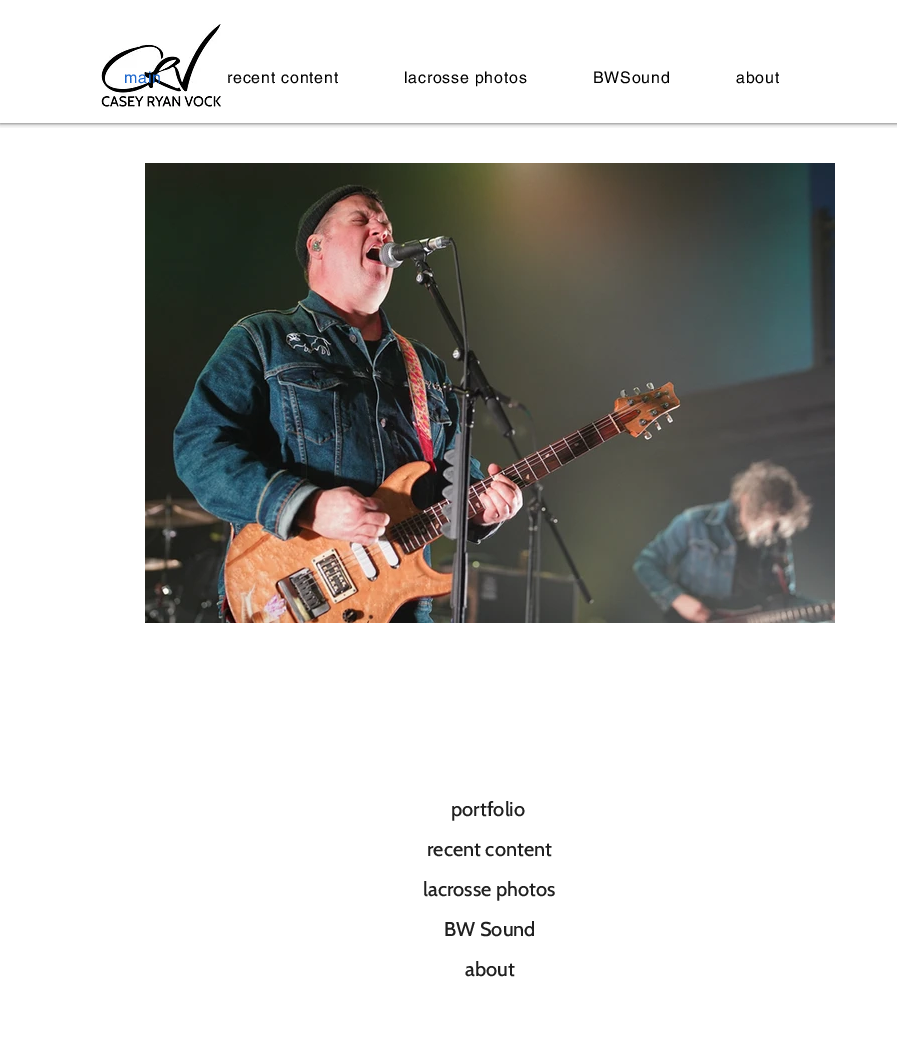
%!PS-Adobe-3.0
%%BoundingBox: 0 0 897 1050
%%LanguageLevel: 3
%%Pages: 1
%%EndComments
%%BeginProlog
/m { moveto } bind def
/q { gsave } bind def
/Q { grestore } bind def
/fn { [ exch dup neg 0 0 3 -1 roll 0 0 ] selectfont } def
/tx { moveto show } def
/bx { rectfill } def
/al { dup .setfillconstantalpha .setstrokeconstantalpha } def
/rr { 5 dict begin { /r /h /w /y /x } { exch def } forall
  x r add y moveto x w add y 2 copy h add r arct x w add y h add x 1 index r arct
  x y h add x y r arct x y 2 copy exch w add exch r arct closepath end } def
/sh { 12 dict begin { /a /b /q /h /w /y /x } { exch def } forall gsave /was 0 def
  9 -2 -9 { dup b mul 4 div /e exch def 1 sub .425 mul 2.718 exch exp 1 add a .99 .min exch div /now exch def
    1 1 now sub 1 was sub div sub al /was now def
    w h .min e 2 mul add 0 gt { x e sub y e sub w e 2 mul add h e 2 mul add
      q e add b .6 mul add w h .min 2 div e add .min 0 .max rr fill } if } for grestore end } def
/im { 5 dict begin { /h /w /y /x /name } { exch def } forall
  gsave x y translate w h scale
  w h 8 [w 0 0 h 0 0] name (r) file false 3 colorimage grestore end } def
%%EndProlog
%%BeginSetup
<< /PageSize [897 1050] /PageUsesTransparency true >> setpagedevice
%%EndSetup
%%Page: 1 1
0 .pushpdf14devicefilter
0 1050 translate 1 -1 scale
4 setmiterlimit
1 setgray
0 0 897 1050 bx
q
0 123 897 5 rectclip
0 setgray
0 0 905 123 0 2.5 0.7 sh
Q
(image0.raw) 101 24 120 84 im
/helvetica-Regular 16 fn
0.114 0.404 0.804 setrgbcolor
124 83 m 0.75 0 (main) ashow
0 setgray
227 83 m 0.75 0 (recent content) ashow
404 83 m 0.75 0 (lacrosse photos) ashow
593 83 m 0.75 0 (BWSound) ashow
736 83 m 0.75 0 (about) ashow
(image1.raw) 145 163 690 460 im
/Cabin-Medium 20 fn
0.125 setgray
(portfolio) 451 816 tx
(recent content) 427 856 tx
(lacrosse photos) 423 896 tx
(BW Sound) 444 936 tx
(about) 465 976 tx
.poppdf14devicefilter showpage
%%EOF
